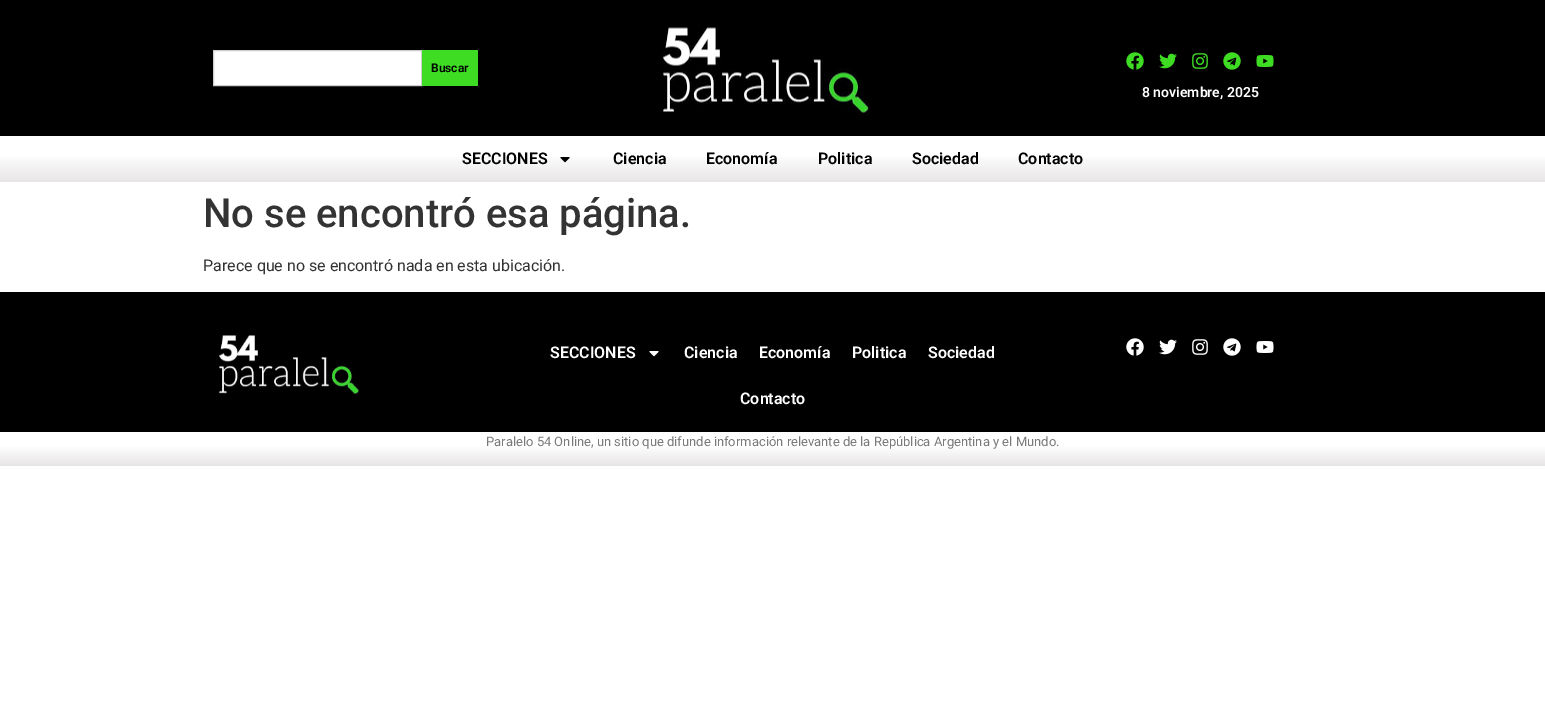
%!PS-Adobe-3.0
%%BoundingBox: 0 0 1545 706
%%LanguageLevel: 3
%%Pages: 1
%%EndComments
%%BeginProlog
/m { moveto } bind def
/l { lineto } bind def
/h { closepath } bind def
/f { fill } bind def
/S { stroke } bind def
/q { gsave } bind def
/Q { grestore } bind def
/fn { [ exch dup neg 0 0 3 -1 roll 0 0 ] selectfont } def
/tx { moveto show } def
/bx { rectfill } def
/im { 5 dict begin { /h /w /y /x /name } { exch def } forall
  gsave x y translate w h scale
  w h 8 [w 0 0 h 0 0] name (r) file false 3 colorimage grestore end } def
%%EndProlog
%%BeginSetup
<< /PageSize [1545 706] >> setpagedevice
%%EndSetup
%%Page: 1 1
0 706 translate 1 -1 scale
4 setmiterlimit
1 setgray
0 0 1545 706 bx
0 setgray
0 0 1545 136 bx
1 setgray
213.5 50.5 m 421.5 50.5 l 421.5 85.5 l 213.5 85.5 l h q f Q
0.804 setgray
S
0.247 0.863 0.141 setrgbcolor
422 50 56 36 bx
/Roboto-SemiBold 12 fn
0 setgray
(Buscar) 431 72 tx
(image0.raw) 662 27 208 89 im
(image1.raw) 1126 52 18 18 im
(image2.raw) 1159 53 18 16 im
(image3.raw) 1192 53 16 16 im
(image4.raw) 1223 52 18 18 im
(image5.raw) 1256 55 18 12 im
/Roboto-SemiBold 14 fn
1 setgray
(8 noviembre, 2025) 1142 97 tx
q 0 157 m 1545 157 l 1545 182 l 0 182 l h clip newpath
<< /ShadingType 2 /ColorSpace /DeviceRGB /Coords [773 136 773 182] /Extend [true true] /Function << /FunctionType 3 /Domain [0 1] /Functions [<< /FunctionType 2 /Domain [0 1] /C0 [1 1 1] /C1 [1 1 1] /N 1 >> << /FunctionType 2 /Domain [0 1] /C0 [1 1 1] /C1 [0.91 0.898 0.902] /N 1 >>] /Bounds [0.39] /Encode [0 1 0 1] >> >> shfill Q
/Roboto-SemiBold 16 fn
0 setgray
(SECCIONES) 462 164 tx
(image6.raw) 560 157 10 6 im
(Ciencia) 613 164 tx
(Economía) 706 164 tx
(Politica) 818 164 tx
(Sociedad) 912 164 tx
(Contacto) 1018 164 tx
/Roboto-Medium 40 fn
0.2 setgray
(No se encontró esa página.) 203 227 tx
/Roboto-Regular 16 fn
(Parece que no se encontró nada en esta ubicación.) 203 271 tx
0 setgray
0 292 1545 140 bx
(image7.raw) 219 335 141 61 im
/Roboto-SemiBold 16 fn
1 setgray
(SECCIONES) 550 358 tx
(image8.raw) 649 351 10 6 im
(Ciencia) 684 358 tx
(Economía) 759 358 tx
(Politica) 852 358 tx
(Sociedad) 928 358 tx
(Contacto) 740 404 tx
(image9.raw) 1126 338 18 18 im
(image10.raw) 1159 339 18 16 im
(image11.raw) 1192 339 16 16 im
(image12.raw) 1223 338 18 18 im
(image13.raw) 1256 341 18 12 im
q 0 447 m 1545 447 l 1545 466 l 0 466 l h clip newpath
<< /ShadingType 2 /ColorSpace /DeviceRGB /Coords [773 432 773 466] /Extend [true true] /Function << /FunctionType 3 /Domain [0 1] /Functions [<< /FunctionType 2 /Domain [0 1] /C0 [1 1 1] /C1 [1 1 1] /N 1 >> << /FunctionType 2 /Domain [0 1] /C0 [1 1 1] /C1 [0.91 0.898 0.902] /N 1 >>] /Bounds [0.39] /Encode [0 1 0 1] >> >> shfill Q
/Roboto-Regular 13 fn
0.478 setgray
(Paralelo 54 Online, un sitio que difunde información relevante de la República Argentina y el Mundo.) 486 446 tx
showpage
%%EOF
